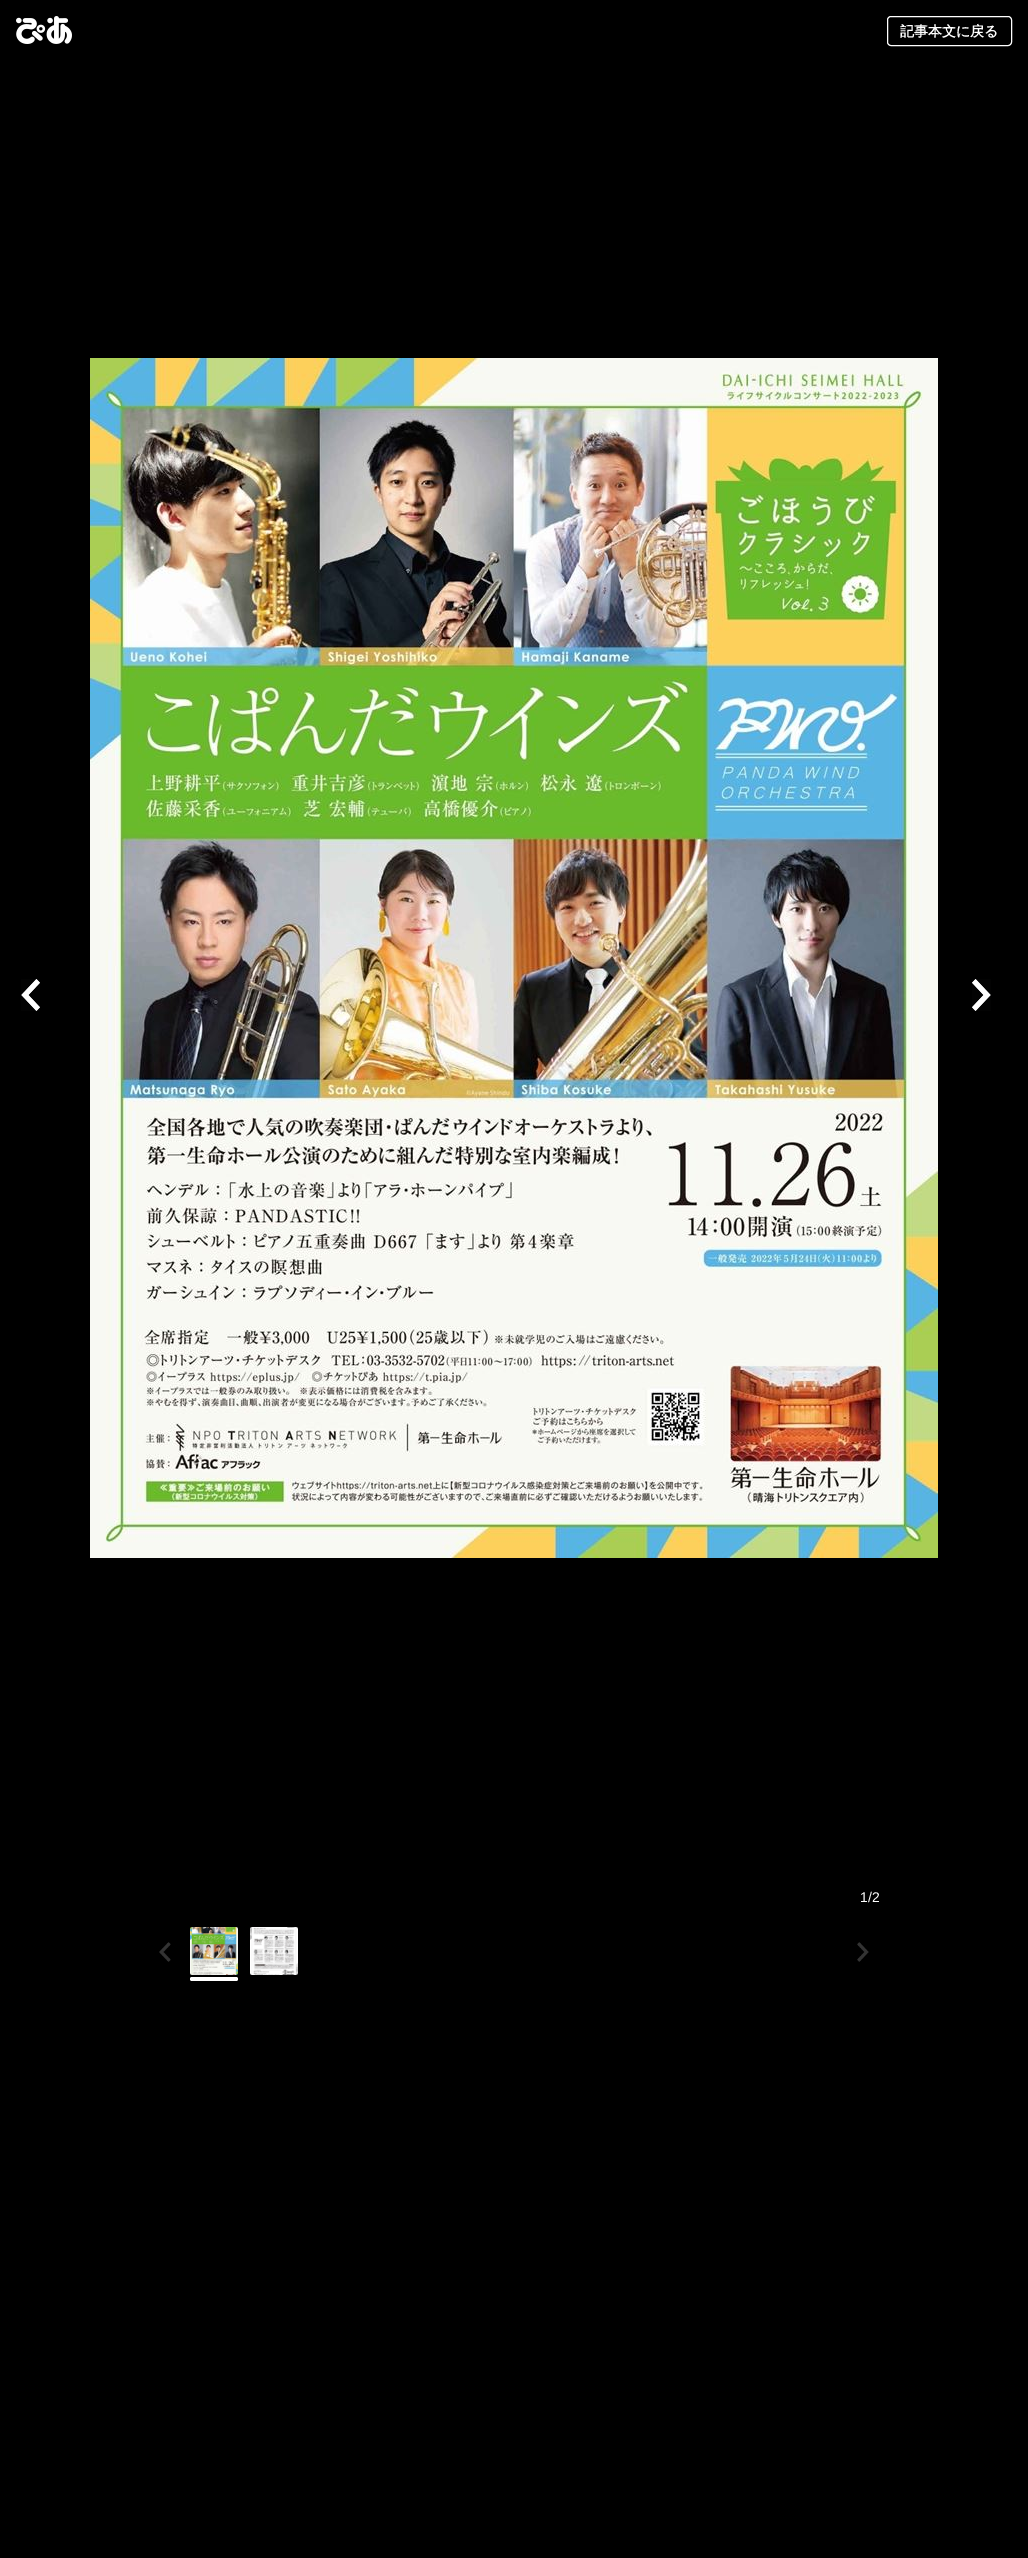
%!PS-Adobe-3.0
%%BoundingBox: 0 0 1028 2558
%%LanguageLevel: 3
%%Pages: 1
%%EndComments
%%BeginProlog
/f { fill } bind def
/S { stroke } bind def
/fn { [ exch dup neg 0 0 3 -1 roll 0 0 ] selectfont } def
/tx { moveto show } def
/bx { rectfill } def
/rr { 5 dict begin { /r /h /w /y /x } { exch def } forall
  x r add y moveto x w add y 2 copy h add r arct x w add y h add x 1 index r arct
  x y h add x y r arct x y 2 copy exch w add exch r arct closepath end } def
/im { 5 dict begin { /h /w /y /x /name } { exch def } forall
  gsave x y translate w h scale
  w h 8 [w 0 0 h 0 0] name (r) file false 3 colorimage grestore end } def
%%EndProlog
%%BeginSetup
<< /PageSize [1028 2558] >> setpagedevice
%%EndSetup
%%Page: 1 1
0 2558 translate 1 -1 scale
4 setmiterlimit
0 setgray
0 0 1028 2558 bx
(image0.raw) 16 16 56 28 im
1 setgray
887.5 16.5 124 29 3.5 rr S
/WenQuanYiZenHei-Bold 14 fn
(記事本文に戻る) 900 36 tx
(image1.raw) 21 979 19 32 im
(image2.raw) 972 979 19 32 im
(image3.raw) 90 358 848 1200 im
/LiberationSans-Regular 14 fn
(1/2) 860 1902 tx
(image4.raw) 159 1942 12 20 im
(image5.raw) 190 1927 48 48 im
190 1977 48 4 2 rr f
(image6.raw) 250 1927 48 48 im
(image7.raw) 857 1942 12 20 im
showpage
%%EOF
